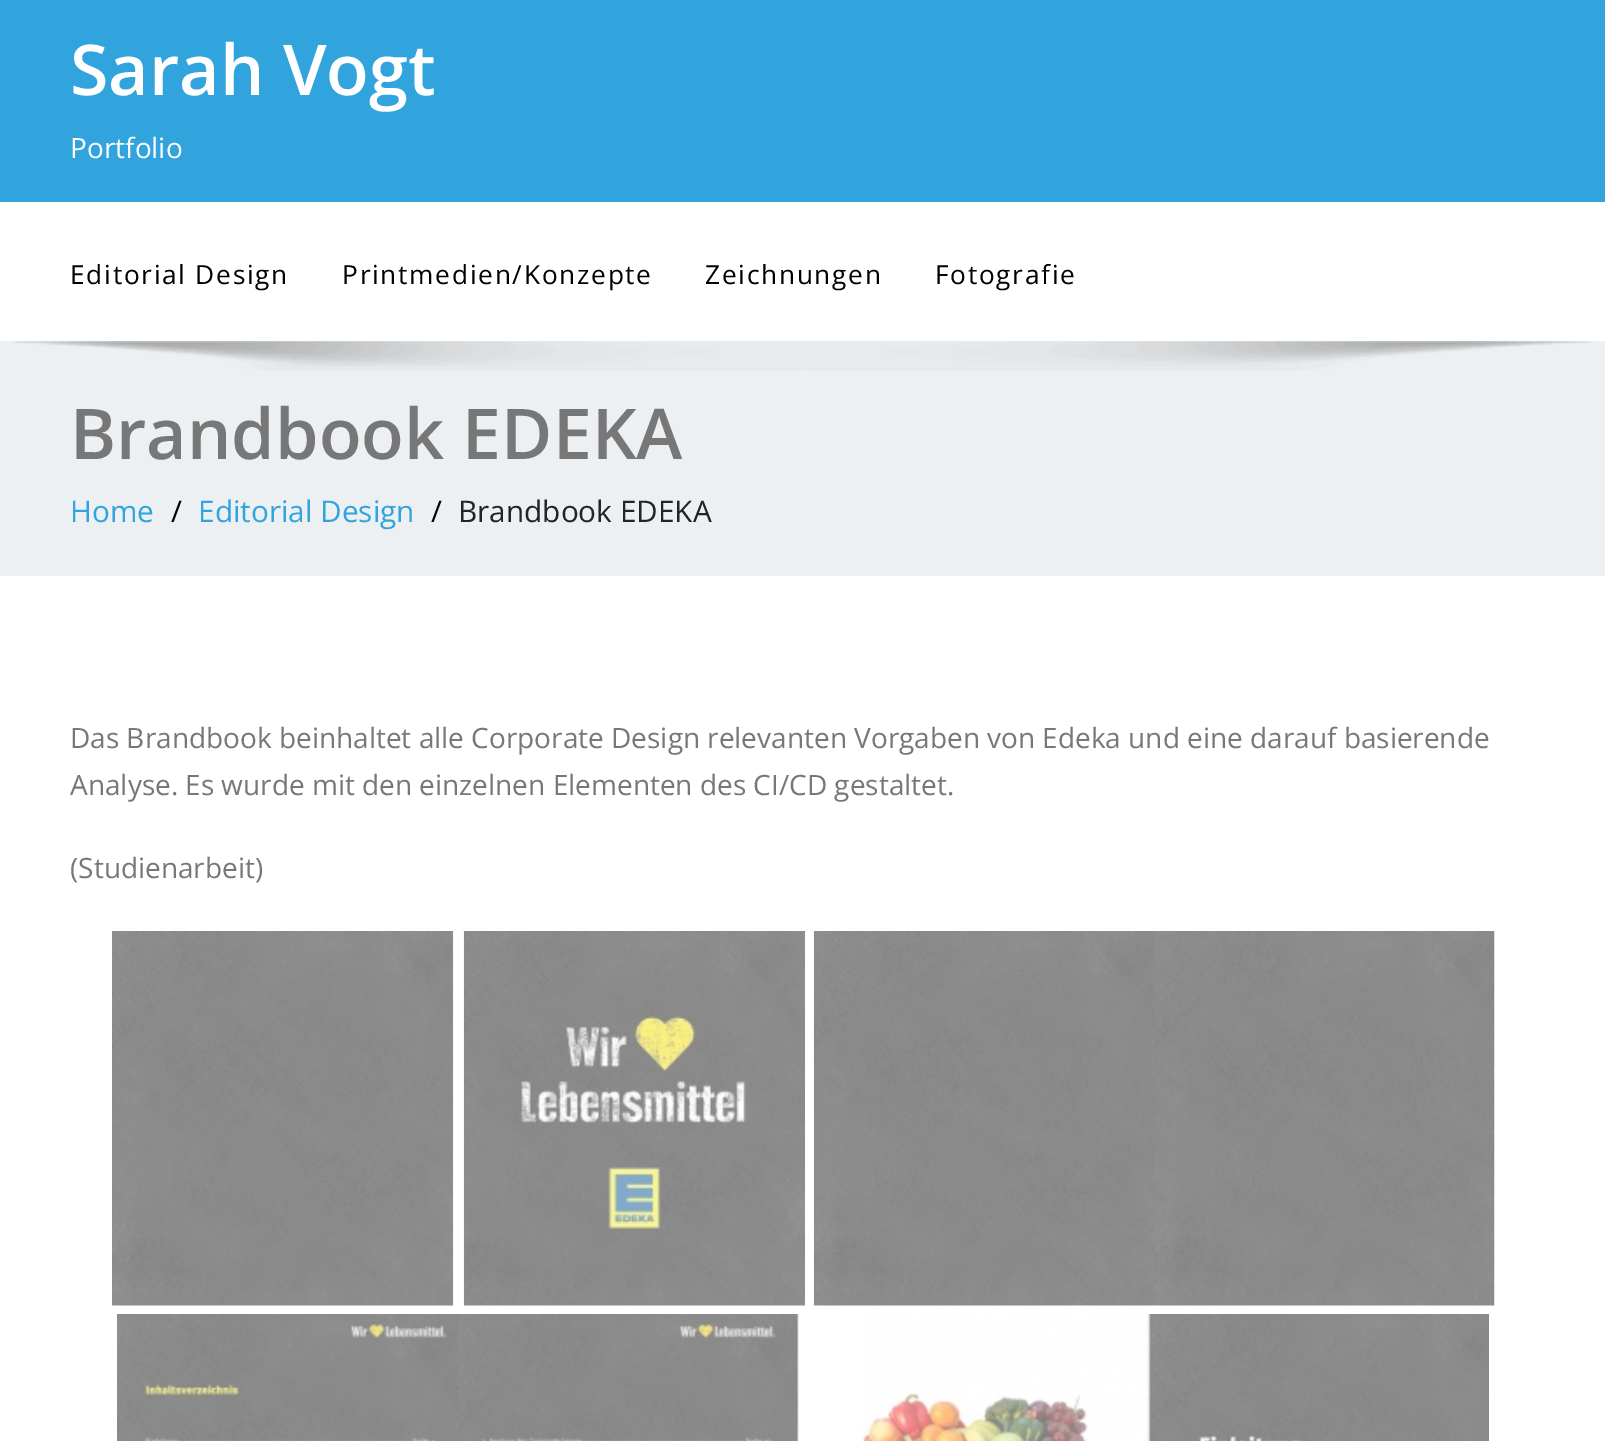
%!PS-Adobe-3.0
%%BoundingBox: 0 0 1605 1441
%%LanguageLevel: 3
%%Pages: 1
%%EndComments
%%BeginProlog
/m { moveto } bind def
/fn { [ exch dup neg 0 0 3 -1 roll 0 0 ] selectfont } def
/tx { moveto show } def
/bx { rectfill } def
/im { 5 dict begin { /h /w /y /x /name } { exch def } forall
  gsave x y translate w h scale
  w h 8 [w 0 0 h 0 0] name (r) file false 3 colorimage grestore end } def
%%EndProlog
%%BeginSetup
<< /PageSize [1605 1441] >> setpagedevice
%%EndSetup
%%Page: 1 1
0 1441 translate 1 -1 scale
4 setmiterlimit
1 setgray
0 0 1605 1441 bx
0.192 0.639 0.867 setrgbcolor
0 0 1605 202 bx
/OpenSans-SemiBold 70 fn
1 setgray
(Sarah Vogt) 70 95 tx
/OpenSans-Regular 28 fn
(Portfolio) 70 158 tx
/OpenSans-Regular 26.25 fn
0 setgray
70 284 m 1.75 0 (Editorial Design) ashow
342 284 m 1.75 0 (Printmedien/Konzepte) ashow
705 284 m 1.75 0 (Zeichnungen) ashow
935 284 m 1.75 0 (Fotografie) ashow
0.929 0.941 0.949 setrgbcolor
0 341 1605 235 bx
(image0.raw) 13 341 1579 30 im
/OpenSans-SemiBold 70 fn
0.467 setgray
(Brandbook EDEKA) 70 459 tx
/OpenSans-Regular 29.75 fn
0.192 0.639 0.867 setrgbcolor
(Home) 70 522 tx
0 setgray
(/) 171 522 tx
0.192 0.639 0.867 setrgbcolor
(Editorial Design) 198 522 tx
0 setgray
(/) 431 522 tx
0.129 0.145 0.161 setrgbcolor
(Brandbook EDEKA) 458 522 tx
/OpenSans-Regular 28 fn
0.467 setgray
(Das Brandbook beinhaltet alle Corporate Design relevanten Vorgaben von Edeka und eine darauf basierende) 70 748 tx
(Analyse. Es wurde mit den einzelnen Elementen des CI/CD gestaltet.) 70 795 tx
(\(Studienarbeit\)) 70 878 tx
(image1.raw) 112 931 342 375 im
(image2.raw) 463 931 342 375 im
(image3.raw) 813 931 682 375 im
(image4.raw) 117 1314 682 127 im
(image5.raw) 862 1314 627 127 im
showpage
%%EOF
